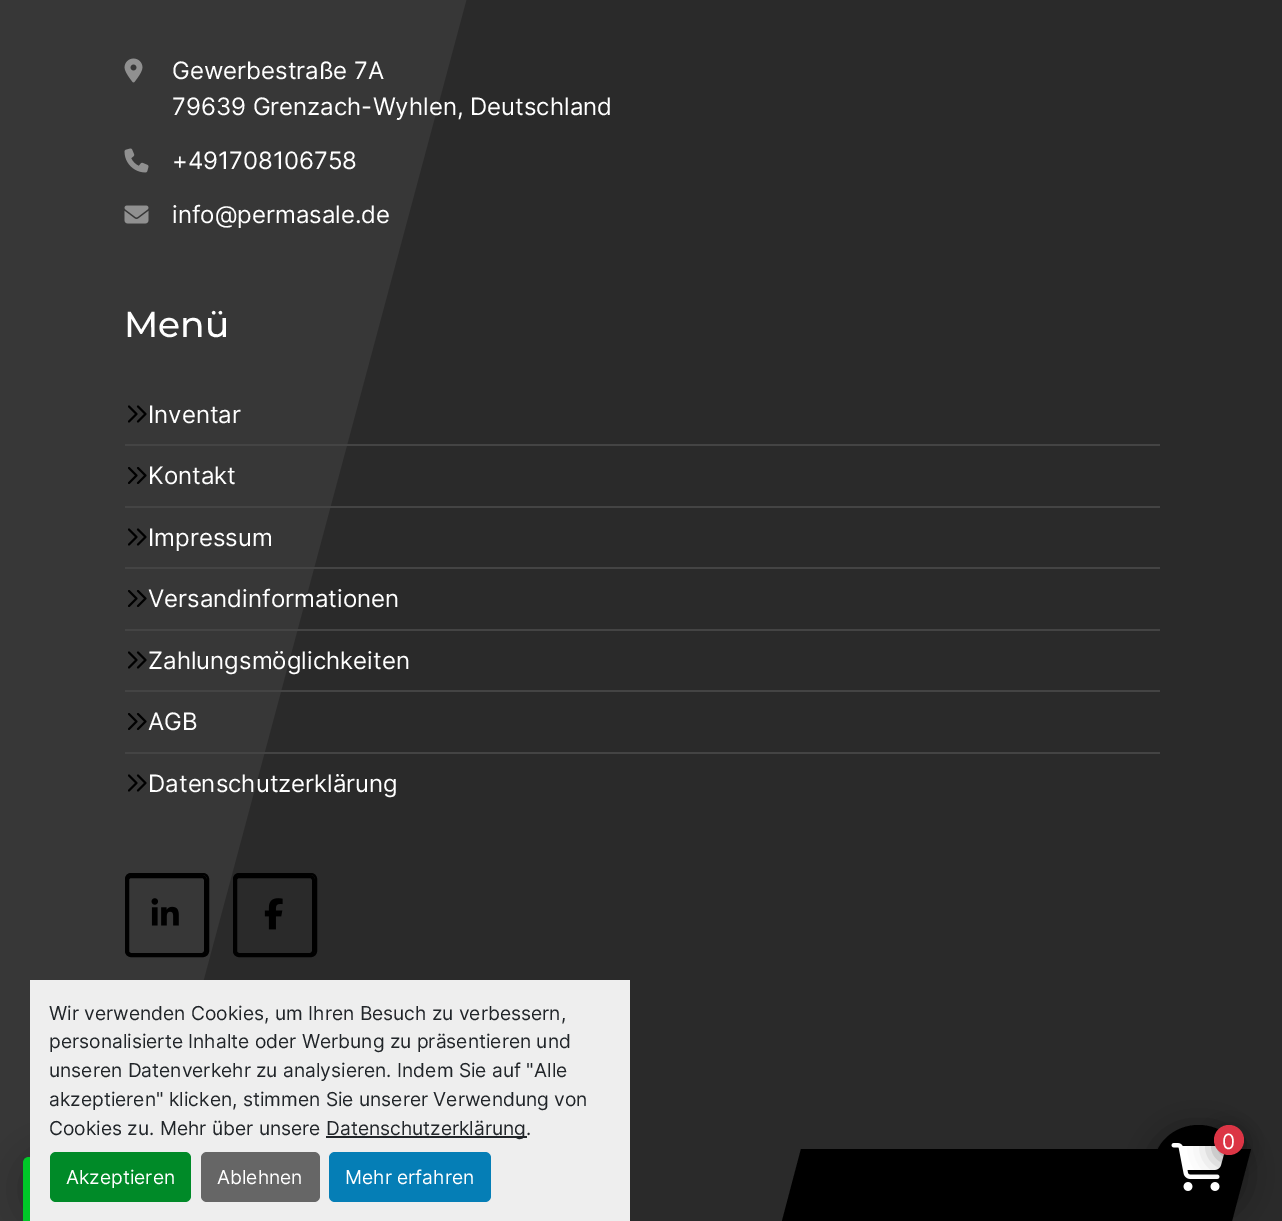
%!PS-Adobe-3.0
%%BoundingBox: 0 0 1282 1221
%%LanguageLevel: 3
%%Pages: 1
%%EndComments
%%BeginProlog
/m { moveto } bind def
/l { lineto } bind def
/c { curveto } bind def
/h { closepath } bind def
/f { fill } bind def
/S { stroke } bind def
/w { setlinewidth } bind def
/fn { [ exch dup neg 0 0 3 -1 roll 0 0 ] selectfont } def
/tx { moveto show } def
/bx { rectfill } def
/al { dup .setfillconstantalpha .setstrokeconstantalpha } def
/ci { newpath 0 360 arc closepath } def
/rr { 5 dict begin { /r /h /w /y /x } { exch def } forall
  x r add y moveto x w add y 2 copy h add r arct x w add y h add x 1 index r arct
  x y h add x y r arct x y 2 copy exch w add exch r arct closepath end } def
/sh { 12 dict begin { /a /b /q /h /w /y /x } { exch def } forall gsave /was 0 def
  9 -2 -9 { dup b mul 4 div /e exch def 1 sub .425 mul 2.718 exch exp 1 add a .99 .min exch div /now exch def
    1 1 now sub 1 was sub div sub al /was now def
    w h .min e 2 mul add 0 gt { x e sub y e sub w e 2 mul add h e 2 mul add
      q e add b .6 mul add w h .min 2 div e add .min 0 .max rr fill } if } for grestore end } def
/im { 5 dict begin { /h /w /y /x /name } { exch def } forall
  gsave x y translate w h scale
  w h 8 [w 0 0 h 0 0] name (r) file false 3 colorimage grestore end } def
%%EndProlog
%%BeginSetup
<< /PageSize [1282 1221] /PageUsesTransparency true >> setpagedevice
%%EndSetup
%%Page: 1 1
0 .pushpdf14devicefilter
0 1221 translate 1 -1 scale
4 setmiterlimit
0.165 setgray
0 0 1282 1221 bx
0.216 setgray
-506 -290 m 544 -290 l 139 1221 l -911 1221 l h f
(image0.raw) 124 58 19 25 im
/Inter-Regular 24 fn
1 setgray
(Gewerbestraße 7A) 172 79 tx
(79639 Grenzach-Wyhlen, Deutschland) 172 115 tx
(image1.raw) 124 148 25 25 im
(+491708106758) 172 169 tx
(image2.raw) 124 205 25 19 im
(info@permasale.de) 172 223 tx
/Montserrat-Thin 36 fn
(Menü) 124 337 tx
0.267 setgray
125 444 1035 2 bx
(image3.raw) 128 405 19 18 im
/Inter-Regular 24 fn
1 setgray
(Inventar) 148 423 tx
0.267 setgray
125 506 1035 2 bx
(image4.raw) 128 467 19 17 im
1 setgray
(Kontakt) 148 484 tx
0.267 setgray
125 567 1035 2 bx
(image3.raw) 128 528 19 18 im
1 setgray
(Impressum) 148 546 tx
0.267 setgray
125 629 1035 2 bx
(image4.raw) 128 590 19 17 im
1 setgray
(Versandinformationen) 148 607 tx
0.267 setgray
125 690 1035 2 bx
(image3.raw) 128 651 19 18 im
1 setgray
(Zahlungsmöglichkeiten) 148 669 tx
0.267 setgray
125 752 1035 2 bx
(image4.raw) 128 713 19 17 im
1 setgray
(AGB) 148 730 tx
(image3.raw) 128 774 19 18 im
(Datenschutzerklärung) 148 792 tx
0 setgray
3 w
127.5 876.5 78 78 3.5 rr S
2 w
126 874 82 82 5 rr S
(image5.raw) 151 898 28 28 im
3 w
235.5 876.5 78 78 3.5 rr S
2 w
234 874 82 82 5 rr S
(image6.raw) 264 898 19 32 im
801 1149 m 1251 1149 l 1232 1221 l 782 1221 l h f
1154 1131 90 84 42 18 0.4 sh
1198.5 1125 m 1223.5 1125 1243.5 1144 1243.5 1167 c 1243.5 1190 1223.5 1209 1198.5 1209 c 1173.5 1209 1153.5 1190 1153.5 1167 c 1153.5 1144 1173.5 1125 1198.5 1125 c h f
(image7.raw) 1171 1143 53 48 im
1214 1131 30 30 15 12 0.4 sh
0.863 0.208 0.271 setrgbcolor
1229 1140 15 ci f
/Inter-Regular 21 fn
1 setgray
(0) 1222 1149 tx
0 setgray
23 1157 64 64 23 22.5 0.3 sh
0 0.827 0.165 setrgbcolor
29 1157 m 64 1157 l 76.5 1157 87 1167.5 87 1180 c 87 1221 l 23 1221 l 23 1163 l 23 1159.5 25.5 1157 29 1157 c h f
0.933 setgray
30 980 600 241 bx
/Inter-Regular 19.2 fn
0.129 0.145 0.161 setrgbcolor
(Wir verwenden Cookies, um Ihren Besuch zu verbessern,) 49 1020 tx
(personalisierte Inhalte oder Werbung zu präsentieren und) 49 1048 tx
(unseren Datenverkehr zu analysieren. Indem Sie auf "Alle) 49 1077 tx
(akzeptieren" klicken, stimmen Sie unserer Verwendung von) 49 1106 tx
(Cookies zu. Mehr über unsere) 49 1135 tx
326 1136 201 2 bx
(Datenschutzerklärung.) 326 1135 tx
0 0.541 0.157 setrgbcolor
50 1152 141 50 6 rr f
1 setgray
(Akzeptieren) 66 1184 tx
0.4 setgray
201 1152 119 50 6 rr f
1 setgray
(Ablehnen) 217 1184 tx
0.02 0.494 0.714 setrgbcolor
329 1152 162 50 6 rr f
1 setgray
(Mehr erfahren) 345 1184 tx
0.05 al
0 setgray
23 1157 7 64 bx
.poppdf14devicefilter showpage
%%EOF
